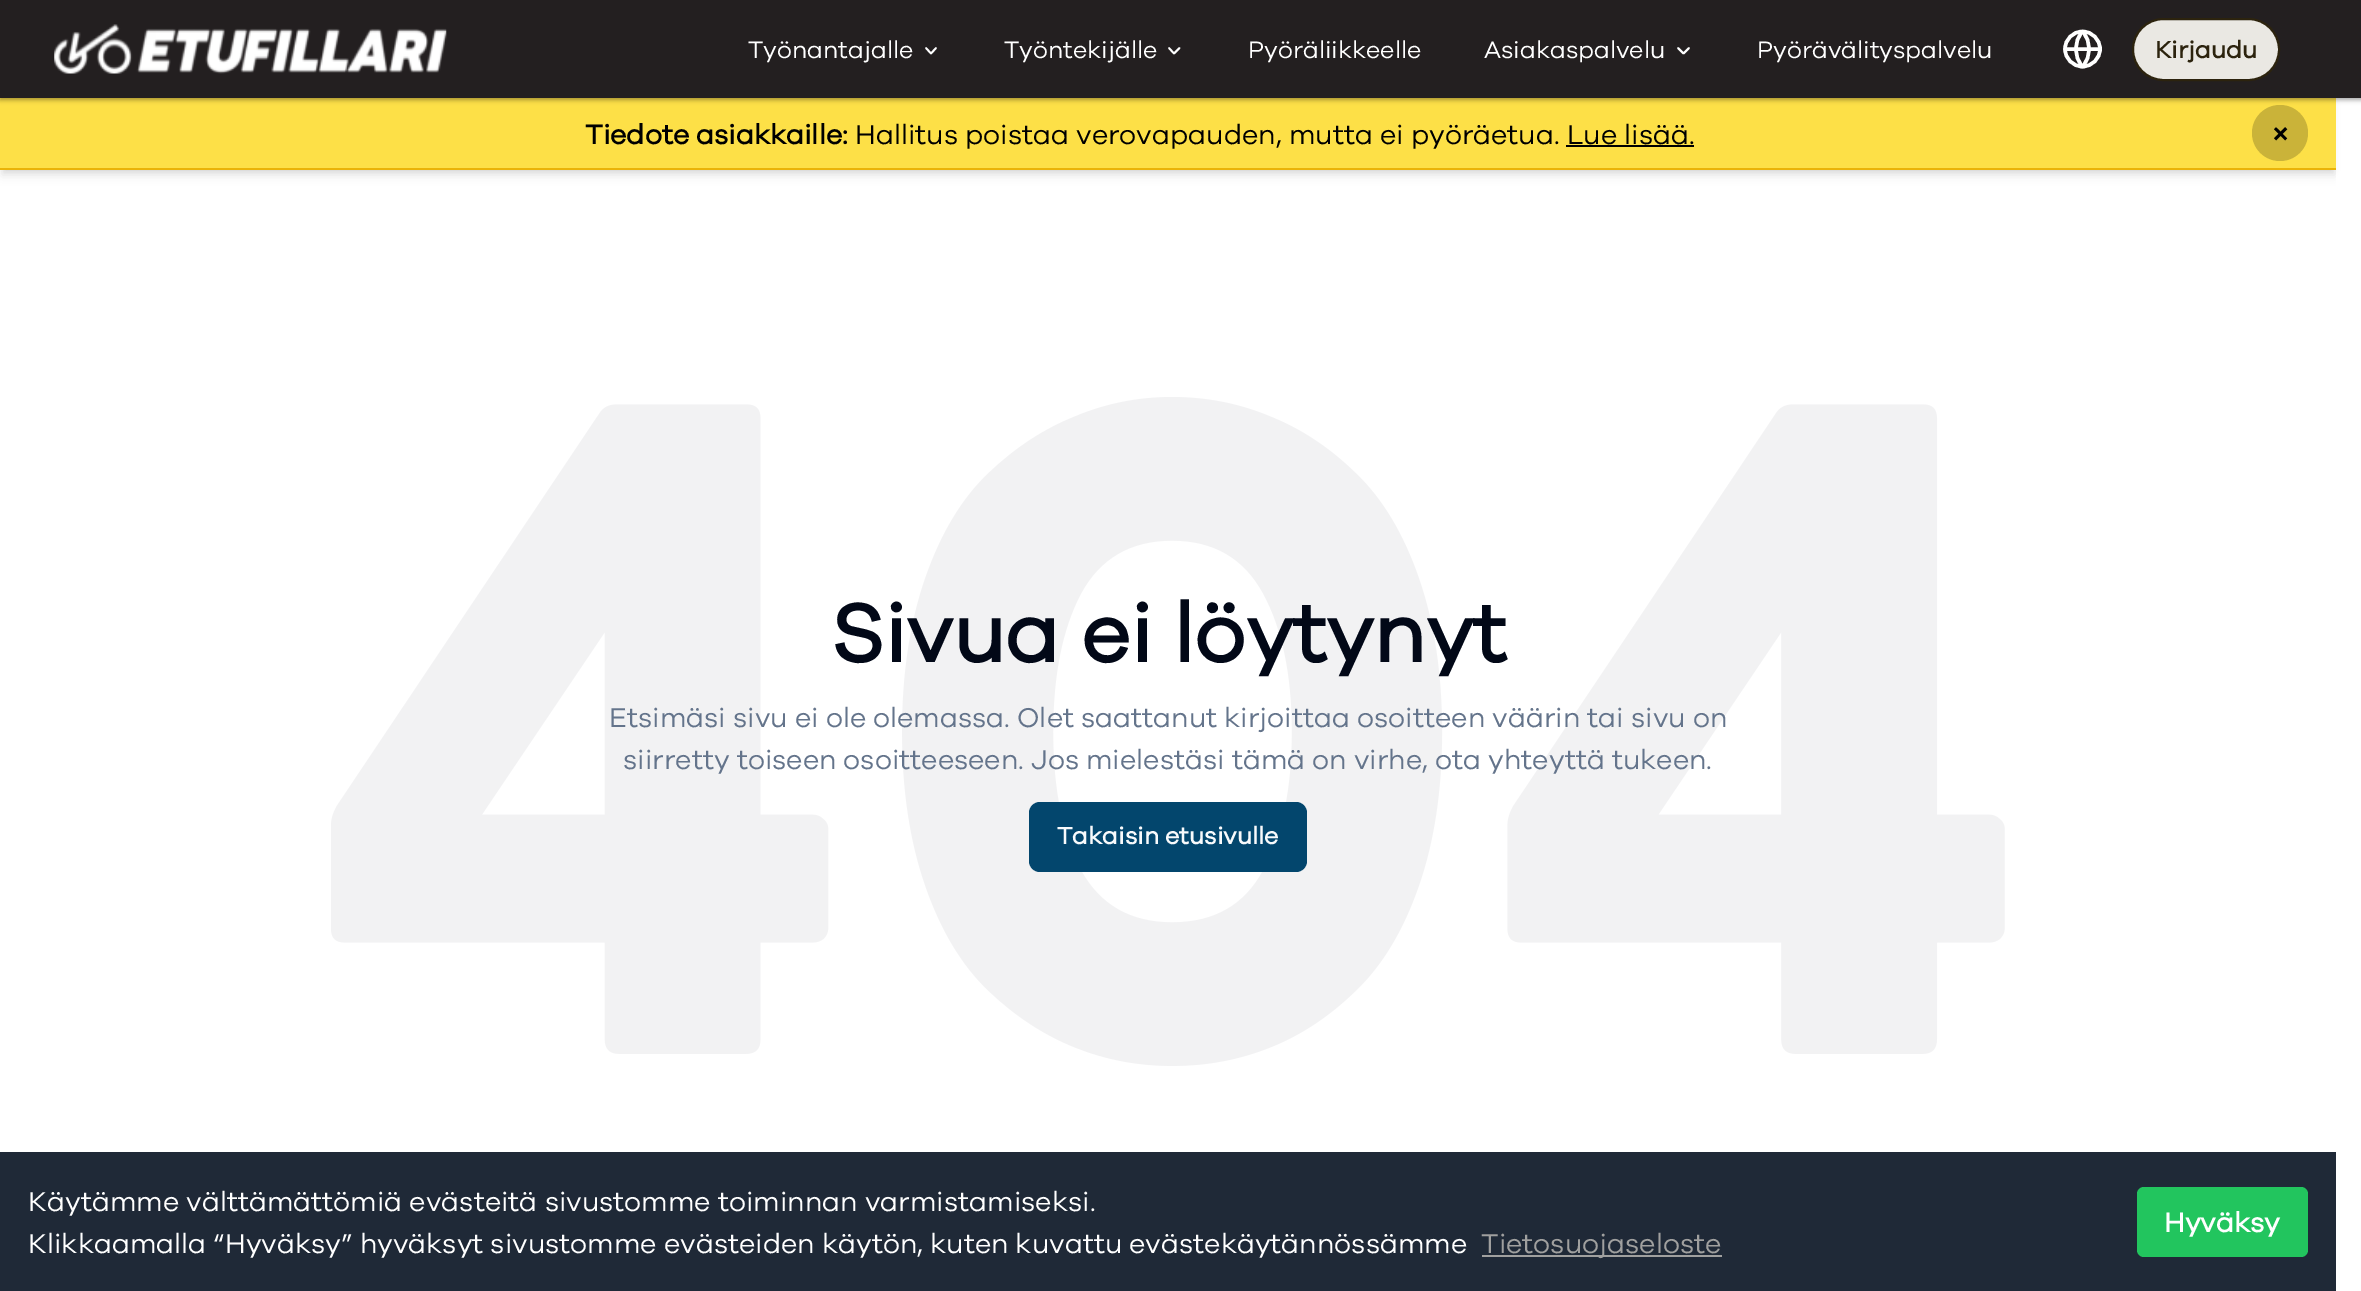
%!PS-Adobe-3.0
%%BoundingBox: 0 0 2361 1291
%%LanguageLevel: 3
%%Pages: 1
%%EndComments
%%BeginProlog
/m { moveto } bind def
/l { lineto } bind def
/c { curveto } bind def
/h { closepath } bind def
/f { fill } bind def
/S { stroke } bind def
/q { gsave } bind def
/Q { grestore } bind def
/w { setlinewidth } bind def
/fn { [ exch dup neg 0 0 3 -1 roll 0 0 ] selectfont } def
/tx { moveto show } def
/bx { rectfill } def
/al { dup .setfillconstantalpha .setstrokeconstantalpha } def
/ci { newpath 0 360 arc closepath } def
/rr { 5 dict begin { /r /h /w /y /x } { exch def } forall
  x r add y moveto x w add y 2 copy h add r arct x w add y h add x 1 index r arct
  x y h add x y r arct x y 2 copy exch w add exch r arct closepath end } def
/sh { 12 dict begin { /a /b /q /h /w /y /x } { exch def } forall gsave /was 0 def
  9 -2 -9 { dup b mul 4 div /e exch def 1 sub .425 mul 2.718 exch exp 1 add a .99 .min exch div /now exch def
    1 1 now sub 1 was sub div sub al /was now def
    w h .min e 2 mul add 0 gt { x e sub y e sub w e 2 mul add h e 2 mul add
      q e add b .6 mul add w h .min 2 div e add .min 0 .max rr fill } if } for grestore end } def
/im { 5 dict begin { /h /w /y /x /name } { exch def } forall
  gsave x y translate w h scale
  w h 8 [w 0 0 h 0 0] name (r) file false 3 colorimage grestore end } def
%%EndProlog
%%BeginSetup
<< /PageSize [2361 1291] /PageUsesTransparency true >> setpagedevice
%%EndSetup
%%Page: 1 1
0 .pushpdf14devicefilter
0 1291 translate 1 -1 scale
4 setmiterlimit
1 setgray
0 0 2361 1291 bx
0 setgray
4 105 2329 65 0 3.5 0.1 sh
q
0 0 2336 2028 rectclip
2 107 2333 68 0 5 0.1 sh
Q
0.992 0.878 0.278 setrgbcolor
0 98 2336 70 bx
0.792 0.702 0.224 setrgbcolor
2280 133 28 ci f
0 setgray
0 2 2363 98 0 2 0.24 sh
0 2 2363 98 0 2.5 0.12 sh
0.137 0.122 0.125 setrgbcolor
0 0 2361 98 bx
(image0.raw) 54 24 393 50 im
/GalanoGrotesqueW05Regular-Regular 24.5 fn
1 setgray
(Työnantajalle) 748 58 tx
1.8 w
1 setlinecap
1 setlinejoin
926 48 m 931 53.5 l 936 48 l S
(Työntekijälle) 1004 58 tx
1169 48 m 1174 53.5 l 1179.5 48 l S
(Pyöräliikkeelle) 1248 58 tx
(Asiakaspalvelu) 1484 58 tx
1678 48 m 1683.5 53.5 l 1689 48 l S
(Pyörävälityspalvelu) 1757 58 tx
3.5 w
0 setlinecap
0 setlinejoin
2082.5 49 17.5 ci S
1 setlinecap
1 setlinejoin
2065 49 m 2100 49 l 2082.5 31.5 m 2091.5 41.5 2091.5 56.5 2082.5 66.5 c 2073.5 56.5 2073.5 41.5 2082.5 31.5 c h S
0.918 0.91 0.89 setrgbcolor
2133 19 146 61 30.5 rr q f Q
0.173 0.137 0.055 setrgbcolor
2 w
0 setlinecap
0 setlinejoin
S
/GalanoGrotesqueW05Regular-Bold 24.5 fn
(Kirjaudu) 2155 58 tx
0.918 0.702 0.031 setrgbcolor
0 168 2336 2 bx
/GalanoGrotesqueW05Regular-Bold 28 fn
0 setgray
(Tiedote asiakkaille:) 585 144 tx
/GalanoGrotesqueW05Regular-Regular 28 fn
(Hallitus poistaa verovapauden, mutta ei pyöräetua. Lue lisää.) 855 144 tx
1566 145 128 2 bx
/GalanoGrotesqueW05Regular-Bold 32 fn
(×) 2272 144 tx
(image1.raw) 331 397 1674 669 im
/GalanoGrotesqueW05Regular-Bold 84 fn
0.008 0.031 0.09 setrgbcolor
(Sivua ei löytynyt) 831 662 tx
/GalanoGrotesqueW05Regular-Regular 28 fn
0.392 0.455 0.545 setrgbcolor
(Etsimäsi sivu ei ole olemassa. Olet saattanut kirjoittaa osoitteen väärin tai sivu on) 609 727 tx
(siirretty toiseen osoitteeseen. Jos mielestäsi tämä on virhe, ota yhteyttä tukeen.) 623 769 tx
0.012 0.275 0.427 setrgbcolor
1029 802 278 70 11 rr f
/GalanoGrotesqueW05Regular-Bold 24.5 fn
0.973 0.98 0.988 setrgbcolor
(Takaisin etusivulle) 1057 844 tx
0.122 0.161 0.216 setrgbcolor
0 1152 2336 139 bx
/GalanoGrotesqueW05Regular-Regular 28 fn
1 setgray
(Käytämme välttämättömiä evästeitä sivustomme toiminnan varmistamiseksi.) 28 1211 tx
(Klikkaamalla “Hyväksy” hyväksyt sivustomme evästeiden käytön, kuten kuvattu evästekäytännössämme) 28 1253 tx
0.627 0.627 0.624 setrgbcolor
1482 1255 240 2 bx
(Tietosuojaseloste) 1481 1253 tx
0.133 0.773 0.369 setrgbcolor
2137 1187 171 70 7 rr f
/GalanoGrotesqueW05Regular-Bold 28 fn
1 setgray
(Hyväksy) 2164 1232 tx
.poppdf14devicefilter showpage
%%EOF
